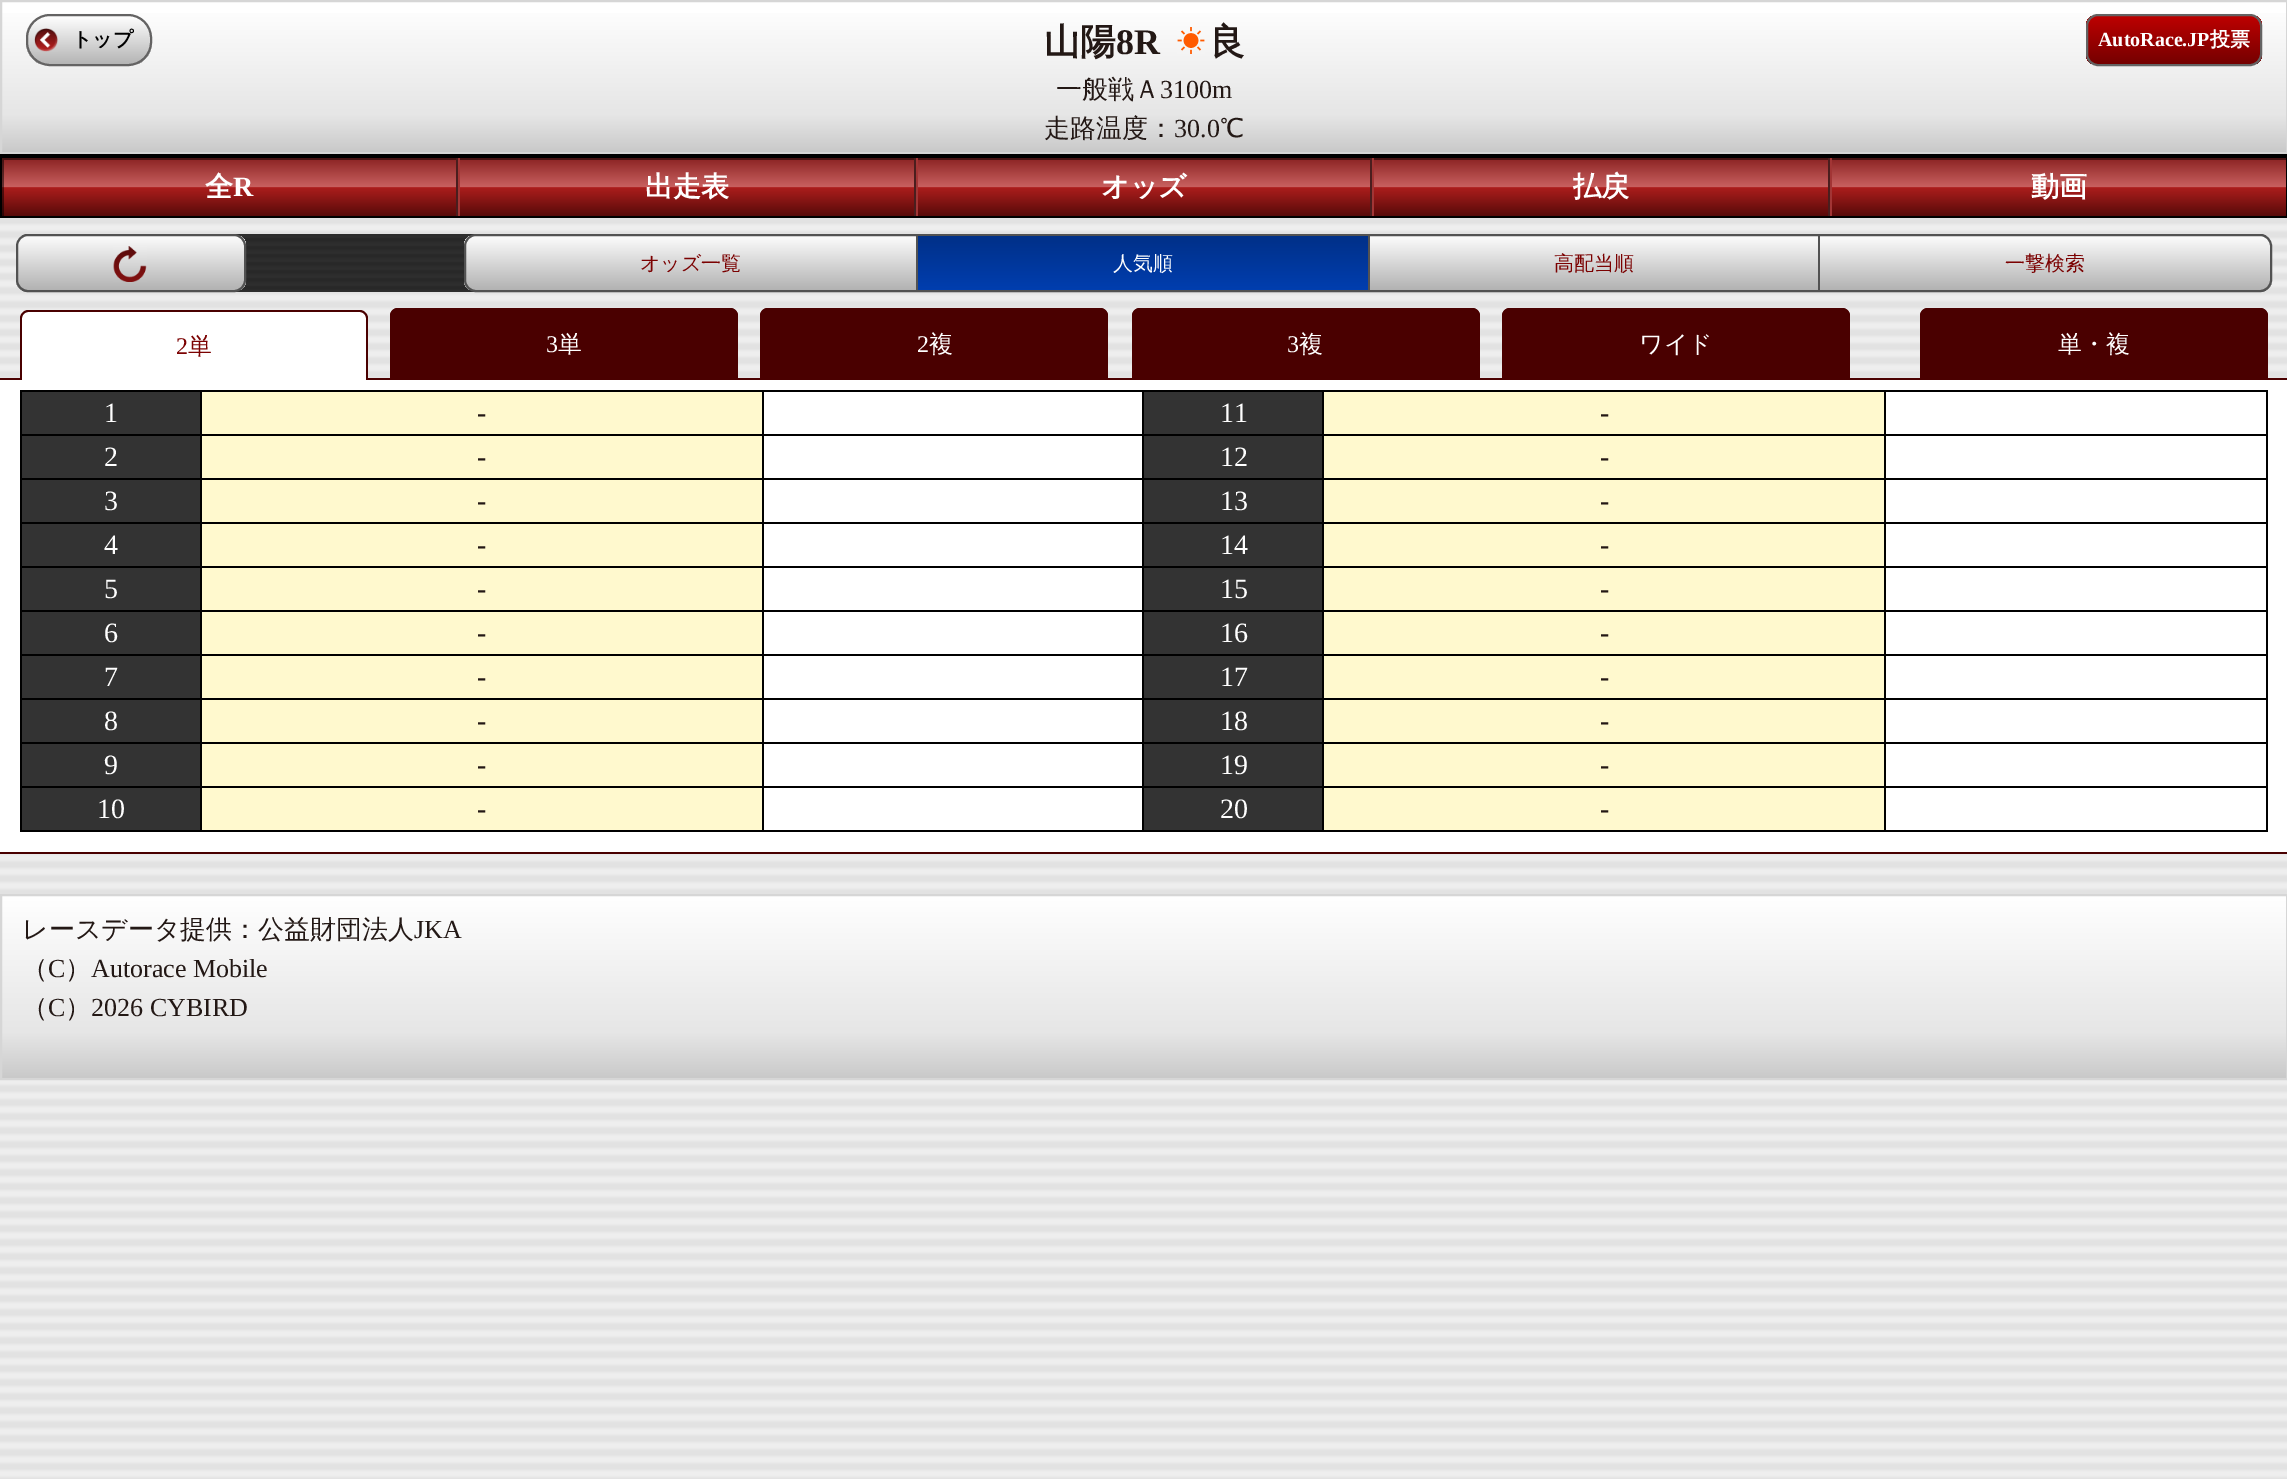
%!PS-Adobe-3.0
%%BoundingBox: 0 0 2287 1479
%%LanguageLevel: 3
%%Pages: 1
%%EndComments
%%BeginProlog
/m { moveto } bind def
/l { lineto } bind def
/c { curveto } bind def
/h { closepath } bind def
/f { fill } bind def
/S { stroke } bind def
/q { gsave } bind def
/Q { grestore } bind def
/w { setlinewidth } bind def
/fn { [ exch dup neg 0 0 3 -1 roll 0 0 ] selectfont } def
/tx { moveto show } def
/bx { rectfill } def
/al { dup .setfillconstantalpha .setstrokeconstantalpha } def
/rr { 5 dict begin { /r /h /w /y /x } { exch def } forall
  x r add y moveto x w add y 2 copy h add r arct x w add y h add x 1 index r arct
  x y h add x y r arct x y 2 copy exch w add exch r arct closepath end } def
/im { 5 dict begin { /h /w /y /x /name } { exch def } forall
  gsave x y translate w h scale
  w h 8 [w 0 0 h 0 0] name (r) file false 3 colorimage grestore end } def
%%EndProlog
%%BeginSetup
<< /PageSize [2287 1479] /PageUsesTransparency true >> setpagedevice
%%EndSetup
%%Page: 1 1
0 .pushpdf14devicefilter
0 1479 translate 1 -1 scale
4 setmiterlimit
1 setgray
0 0 2287 1479 bx
(image0.raw) 0 218 2287 1261 im
q 2 13 m 2286 13 l 2286 152 l 2 152 l h clip newpath
<< /ShadingType 2 /ColorSpace /DeviceRGB /Coords [1144 2 1144 152] /Extend [true true] /Function << /FunctionType 3 /Domain [0 1] /Functions [<< /FunctionType 2 /Domain [0 1] /C0 [1 1 1] /C1 [0.902 0.902 0.902] /N 1 >> << /FunctionType 2 /Domain [0 1] /C0 [0.902 0.902 0.902] /C1 [0.788 0.788 0.788] /N 1 >>] /Bounds [0.75] /Encode [0 1 0 1] >> >> shfill Q
0.839 setgray
2 w
1 1 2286 152 rectstroke
q
26 14 126 52 24 rr clip newpath
q 26 16 m 152 16 l 152 64 l 26 64 l h clip newpath
<< /ShadingType 2 /ColorSpace /DeviceRGB /Coords [89 16 89 64] /Extend [true true] /Function << /FunctionType 2 /Domain [0 1] /C0 [1 1 1] /C1 [0.706 0.706 0.706] /N 1 >> >> shfill Q
Q
0.392 0.388 0.388 setrgbcolor
27 15 124 50 23 rr S
(image1.raw) 34 28 24 24 im
/WenQuanYiZenHei-Bold 20 fn
0 setgray
(トップ) 72 46 tx
/WenQuanYiZenHei-Bold 36 fn
0.137 0.094 0.082 setrgbcolor
(山陽) 1044 54 tx
/LiberationSerif-Bold 36 fn
(8R) 1116 54 tx
(image2.raw) 1177 27 28 27 im
/WenQuanYiZenHei-Bold 36 fn
(良) 1209 54 tx
q
2086 14 176 52 12 rr clip newpath
q 2086 16 m 2262 16 l 2262 64 l 2086 64 l h clip newpath
<< /ShadingType 2 /ColorSpace /DeviceRGB /Coords [2174 16 2174 64] /Extend [true true] /Function << /FunctionType 2 /Domain [0 1] /C0 [0.741 0 0] /C1 [0.459 0 0] /N 1 >> >> shfill Q
Q
0.392 0.388 0.388 setrgbcolor
2087 15 174 50 11 rr S
/LiberationSerif-Bold 20 fn
1 setgray
(AutoRace.JP) 2098 46 tx
/WenQuanYiZenHei-Bold 20 fn
(投票) 2210 46 tx
/WenQuanYiZenHei-Medium 26 fn
0.137 0.094 0.082 setrgbcolor
(一般戦Ａ) 1056 98 tx
/LiberationSerif-Regular 26 fn
(3100m) 1160 98 tx
/WenQuanYiZenHei-Medium 26 fn
(走路温度：) 1044 137 tx
/LiberationSerif-Regular 26 fn
(30.0) 1174 137 tx
/WenQuanYiZenHei-Medium 26 fn
(℃) 1220 137 tx
q 2 158 m 2286 158 l 2286 216 l 2 216 l h clip newpath
<< /ShadingType 2 /ColorSpace /DeviceRGB /Coords [1144 158 1144 216] /Extend [true true] /Function << /FunctionType 3 /Domain [0 1] /Functions [<< /FunctionType 2 /Domain [0 1] /C0 [0.545 0.137 0.137] /C1 [0.788 0.38 0.376] /N 1 >> << /FunctionType 2 /Domain [0 1] /C0 [0.788 0.38 0.376] /C1 [0.671 0.114 0.11] /N 1 >> << /FunctionType 2 /Domain [0 1] /C0 [0.671 0.114 0.11] /C1 [0.345 0.039 0.035] /N 1 >>] /Bounds [0.5 0.51] /Encode [0 1 0 1 0 1] >> >> shfill Q
q
2 158 2284 58 rectclip
0.5 al
0 setgray
-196 -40 m 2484 -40 l 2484 414 l -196 414 l h 4 160 m 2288 160 l 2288 218 l 4 218 l h eofill
Q
0 setgray
0 154 2287 4 bx
2286 154 1 64 bx
0 216 2287 2 bx
0 154 2 64 bx
0.29 0.118 0.118 setrgbcolor
456 158 2 58 bx
/WenQuanYiZenHei-Bold 28 fn
1 setgray
(全) 205 196 tx
/LiberationSerif-Bold 28 fn
(R) 233 196 tx
0.29 0.118 0.118 setrgbcolor
914 158 2 58 bx
0.635 0.208 0.208 setrgbcolor
458 158 2 58 bx
/WenQuanYiZenHei-Bold 28 fn
1 setgray
(出走表) 645 196 tx
0.29 0.118 0.118 setrgbcolor
1370 158 2 58 bx
0.635 0.208 0.208 setrgbcolor
916 158 2 58 bx
1 setgray
(オッズ) 1101 196 tx
0.29 0.118 0.118 setrgbcolor
1828 158 2 58 bx
0.635 0.208 0.208 setrgbcolor
1372 158 2 58 bx
1 setgray
(払戻) 1573 196 tx
0.635 0.208 0.208 setrgbcolor
1830 158 2 58 bx
1 setgray
(動画) 2031 196 tx
(image3.raw) 16 234 2256 58 im
q
16 234 230 58 12 rr clip newpath
q 16 236 m 246 236 l 246 290 l 16 290 l h clip newpath
<< /ShadingType 2 /ColorSpace /DeviceRGB /Coords [131 236 131 290] /Extend [true true] /Function << /FunctionType 2 /Domain [0 1] /C0 [0.988 0.988 0.988] /C1 [0.698 0.698 0.698] /N 1 >> >> shfill Q
Q
0.322 setgray
17 235 228 56 11 rr S
(image4.raw) 113 246 34 36 im
q
464 234 1808 58 12 rr clip newpath
q 464 236 m 2272 236 l 2272 290 l 464 290 l h clip newpath
<< /ShadingType 2 /ColorSpace /DeviceRGB /Coords [1368 236 1368 290] /Extend [true true] /Function << /FunctionType 2 /Domain [0 1] /C0 [0.988 0.988 0.988] /C1 [0.698 0.698 0.698] /N 1 >> >> shfill Q
Q
465 235 1806 56 11 rr S
/WenQuanYiZenHei-Medium 20 fn
0.482 0.004 0.004 setrgbcolor
(オッズ一覧) 640 270 tx
q 918 236 m 1368 236 l 1368 290 l 918 290 l h clip newpath
<< /ShadingType 2 /ColorSpace /DeviceRGB /Coords [1143 236 1143 290] /Extend [true true] /Function << /FunctionType 2 /Domain [0 1] /C0 [0.004 0.188 0.533] /C1 [0 0.243 0.686] /N 1 >> >> shfill Q
0.322 setgray
916 236 2 54 bx
1 setgray
(人気順) 1113 270 tx
0.322 setgray
1368 236 2 54 bx
0.482 0.004 0.004 setrgbcolor
(高配当順) 1554 270 tx
0.322 setgray
1818 236 2 54 bx
0.482 0.004 0.004 setrgbcolor
(一撃検索) 2005 270 tx
0.29 0 0 setrgbcolor
0 378 2287 2 bx
1 setgray
28 310 m 360 310 l 364.5 310 368 313.5 368 318 c 368 380 l 20 380 l 20 318 l 20 313.5 23.5 310 28 310 c h f
0.29 0 0 setrgbcolor
28 310 m 360 310 l 364 310 368 314 368 318 c 368 380 l 20 380 l 20 318 l 20 314 24 310 28 310 c h 28 312 m 360 312 l 363 312 366 315 366 318 c 366 380 l 22 380 l 22 318 l 22 315 25 312 28 312 c h eofill
/LiberationSerif-Regular 24 fn
0.482 0.004 0.004 setrgbcolor
(2) 176 354 tx
/WenQuanYiZenHei-Medium 24 fn
(単) 188 354 tx
0.29 0 0 setrgbcolor
398 308 m 730 308 l 734.5 308 738 311.5 738 316 c 738 378 l 390 378 l 390 316 l 390 311.5 393.5 308 398 308 c h f
398 308 m 730 308 l 734 308 738 312 738 316 c 738 378 l 390 378 l 390 316 l 390 312 394 308 398 308 c h 398 310 m 730 310 l 733 310 736 313 736 316 c 736 378 l 392 378 l 392 316 l 392 313 395 310 398 310 c h eofill
/LiberationSerif-Regular 24 fn
1 setgray
(3) 546 352 tx
/WenQuanYiZenHei-Medium 24 fn
(単) 558 352 tx
0.29 0 0 setrgbcolor
768 308 m 1100 308 l 1104.5 308 1108 311.5 1108 316 c 1108 378 l 760 378 l 760 316 l 760 311.5 763.5 308 768 308 c h f
768 308 m 1100 308 l 1104 308 1108 312 1108 316 c 1108 378 l 760 378 l 760 316 l 760 312 764 308 768 308 c h 768 310 m 1100 310 l 1103 310 1106 313 1106 316 c 1106 378 l 762 378 l 762 316 l 762 313 765 310 768 310 c h eofill
/LiberationSerif-Regular 24 fn
1 setgray
(2) 917 352 tx
/WenQuanYiZenHei-Medium 24 fn
(複) 929 352 tx
0.29 0 0 setrgbcolor
1140 308 m 1472 308 l 1476.5 308 1480 311.5 1480 316 c 1480 378 l 1132 378 l 1132 316 l 1132 311.5 1135.5 308 1140 308 c h f
1140 308 m 1472 308 l 1476 308 1480 312 1480 316 c 1480 378 l 1132 378 l 1132 316 l 1132 312 1136 308 1140 308 c h 1140 310 m 1472 310 l 1475 310 1478 313 1478 316 c 1478 378 l 1134 378 l 1134 316 l 1134 313 1137 310 1140 310 c h eofill
/LiberationSerif-Regular 24 fn
1 setgray
(3) 1287 352 tx
/WenQuanYiZenHei-Medium 24 fn
(複) 1299 352 tx
0.29 0 0 setrgbcolor
1510 308 m 1842 308 l 1846.5 308 1850 311.5 1850 316 c 1850 378 l 1502 378 l 1502 316 l 1502 311.5 1505.5 308 1510 308 c h f
1510 308 m 1842 308 l 1846 308 1850 312 1850 316 c 1850 378 l 1502 378 l 1502 316 l 1502 312 1506 308 1510 308 c h 1510 310 m 1842 310 l 1845 310 1848 313 1848 316 c 1848 378 l 1504 378 l 1504 316 l 1504 313 1507 310 1510 310 c h eofill
1 setgray
(ワイド) 1639 352 tx
0.29 0 0 setrgbcolor
1928 308 m 2260 308 l 2264.5 308 2268 311.5 2268 316 c 2268 378 l 1920 378 l 1920 316 l 1920 311.5 1923.5 308 1928 308 c h f
1928 308 m 2260 308 l 2264 308 2268 312 2268 316 c 2268 378 l 1920 378 l 1920 316 l 1920 312 1924 308 1928 308 c h 1928 310 m 2260 310 l 2263 310 2266 313 2266 316 c 2266 378 l 1922 378 l 1922 316 l 1922 313 1925 310 1928 310 c h eofill
1 setgray
(単・複) 2058 352 tx
0 380 2287 472 bx
0.29 0 0 setrgbcolor
0 852 2287 2 bx
0.2 setgray
22 392 178 42 bx
0 setgray
1884 390 384 2 bx
1884 434 384 2 bx
1884 478 384 2 bx
1884 522 384 2 bx
1884 566 384 2 bx
1884 610 384 2 bx
1884 654 384 2 bx
1884 698 384 2 bx
1884 742 384 2 bx
1884 786 384 2 bx
2266 786 2 46 bx
1884 830 384 2 bx
1884 786 2 46 bx
1322 786 564 2 bx
1884 742 2 46 bx
1322 742 564 2 bx
1884 698 2 46 bx
1322 698 564 2 bx
1884 654 2 46 bx
1322 654 564 2 bx
1884 610 2 46 bx
1322 610 564 2 bx
1884 566 2 46 bx
1322 566 564 2 bx
1884 522 2 46 bx
1322 522 564 2 bx
1884 478 2 46 bx
1322 478 564 2 bx
1884 434 2 46 bx
1322 434 564 2 bx
1884 390 2 46 bx
1322 390 564 2 bx
1322 830 564 2 bx
1322 786 2 46 bx
1142 786 182 2 bx
1322 742 2 46 bx
1142 742 182 2 bx
1322 698 2 46 bx
1142 698 182 2 bx
1322 654 2 46 bx
1142 654 182 2 bx
1322 610 2 46 bx
1142 610 182 2 bx
1322 566 2 46 bx
1142 566 182 2 bx
1322 522 2 46 bx
1142 522 182 2 bx
1322 478 2 46 bx
1142 478 182 2 bx
1322 434 2 46 bx
1142 434 182 2 bx
1322 390 2 46 bx
1142 390 182 2 bx
1142 830 182 2 bx
1142 786 2 46 bx
762 786 382 2 bx
1142 742 2 46 bx
762 742 382 2 bx
1142 698 2 46 bx
762 698 382 2 bx
1142 654 2 46 bx
762 654 382 2 bx
1142 610 2 46 bx
762 610 382 2 bx
1142 566 2 46 bx
762 566 382 2 bx
1142 522 2 46 bx
762 522 382 2 bx
1142 478 2 46 bx
762 478 382 2 bx
1142 434 2 46 bx
762 434 382 2 bx
1142 390 2 46 bx
762 390 382 2 bx
762 830 382 2 bx
762 786 2 46 bx
200 786 564 2 bx
762 742 2 46 bx
200 742 564 2 bx
762 698 2 46 bx
200 698 564 2 bx
762 654 2 46 bx
200 654 564 2 bx
762 610 2 46 bx
200 610 564 2 bx
762 566 2 46 bx
200 566 564 2 bx
762 522 2 46 bx
200 522 564 2 bx
762 478 2 46 bx
200 478 564 2 bx
762 434 2 46 bx
200 434 564 2 bx
762 390 2 46 bx
200 390 564 2 bx
200 830 564 2 bx
200 786 2 46 bx
20 786 182 2 bx
200 742 2 46 bx
20 742 182 2 bx
200 698 2 46 bx
20 698 182 2 bx
200 654 2 46 bx
20 654 182 2 bx
200 610 2 46 bx
20 610 182 2 bx
200 566 2 46 bx
20 566 182 2 bx
200 522 2 46 bx
20 522 182 2 bx
200 478 2 46 bx
20 478 182 2 bx
200 434 2 46 bx
20 434 182 2 bx
200 390 2 46 bx
20 390 182 2 bx
20 830 182 2 bx
20 786 2 46 bx
20 742 2 46 bx
20 698 2 46 bx
20 654 2 46 bx
20 610 2 46 bx
20 566 2 46 bx
20 522 2 46 bx
20 478 2 46 bx
20 434 2 46 bx
20 390 2 46 bx
/LiberationSerif-Regular 28 fn
1 setgray
(1) 104 422 tx
1 0.976 0.808 setrgbcolor
202 392 560 42 bx
0.137 0.094 0.082 setrgbcolor
(-) 477 422 tx
0.2 setgray
1144 392 178 42 bx
1 setgray
(11) 1220 422 tx
1 0.976 0.808 setrgbcolor
1324 392 560 42 bx
0.137 0.094 0.082 setrgbcolor
(-) 1600 422 tx
0 setgray
2266 742 2 46 bx
2266 698 2 46 bx
2266 654 2 46 bx
2266 610 2 46 bx
2266 566 2 46 bx
2266 522 2 46 bx
2266 478 2 46 bx
2266 434 2 46 bx
2266 390 2 46 bx
0.2 setgray
22 436 178 42 bx
1 setgray
(2) 104 466 tx
1 0.976 0.808 setrgbcolor
202 436 560 42 bx
0.137 0.094 0.082 setrgbcolor
(-) 477 466 tx
0.2 setgray
1144 436 178 42 bx
1 setgray
(12) 1220 466 tx
1 0.976 0.808 setrgbcolor
1324 436 560 42 bx
0.137 0.094 0.082 setrgbcolor
(-) 1600 466 tx
0.2 setgray
22 480 178 42 bx
1 setgray
(3) 104 510 tx
1 0.976 0.808 setrgbcolor
202 480 560 42 bx
0.137 0.094 0.082 setrgbcolor
(-) 477 510 tx
0.2 setgray
1144 480 178 42 bx
1 setgray
(13) 1220 510 tx
1 0.976 0.808 setrgbcolor
1324 480 560 42 bx
0.137 0.094 0.082 setrgbcolor
(-) 1600 510 tx
0.2 setgray
22 524 178 42 bx
1 setgray
(4) 104 554 tx
1 0.976 0.808 setrgbcolor
202 524 560 42 bx
0.137 0.094 0.082 setrgbcolor
(-) 477 554 tx
0.2 setgray
1144 524 178 42 bx
1 setgray
(14) 1220 554 tx
1 0.976 0.808 setrgbcolor
1324 524 560 42 bx
0.137 0.094 0.082 setrgbcolor
(-) 1600 554 tx
0.2 setgray
22 568 178 42 bx
1 setgray
(5) 104 598 tx
1 0.976 0.808 setrgbcolor
202 568 560 42 bx
0.137 0.094 0.082 setrgbcolor
(-) 477 598 tx
0.2 setgray
1144 568 178 42 bx
1 setgray
(15) 1220 598 tx
1 0.976 0.808 setrgbcolor
1324 568 560 42 bx
0.137 0.094 0.082 setrgbcolor
(-) 1600 598 tx
0.2 setgray
22 612 178 42 bx
1 setgray
(6) 104 642 tx
1 0.976 0.808 setrgbcolor
202 612 560 42 bx
0.137 0.094 0.082 setrgbcolor
(-) 477 642 tx
0.2 setgray
1144 612 178 42 bx
1 setgray
(16) 1220 642 tx
1 0.976 0.808 setrgbcolor
1324 612 560 42 bx
0.137 0.094 0.082 setrgbcolor
(-) 1600 642 tx
0.2 setgray
22 656 178 42 bx
1 setgray
(7) 104 686 tx
1 0.976 0.808 setrgbcolor
202 656 560 42 bx
0.137 0.094 0.082 setrgbcolor
(-) 477 686 tx
0.2 setgray
1144 656 178 42 bx
1 setgray
(17) 1220 686 tx
1 0.976 0.808 setrgbcolor
1324 656 560 42 bx
0.137 0.094 0.082 setrgbcolor
(-) 1600 686 tx
0.2 setgray
22 700 178 42 bx
1 setgray
(8) 104 730 tx
1 0.976 0.808 setrgbcolor
202 700 560 42 bx
0.137 0.094 0.082 setrgbcolor
(-) 477 730 tx
0.2 setgray
1144 700 178 42 bx
1 setgray
(18) 1220 730 tx
1 0.976 0.808 setrgbcolor
1324 700 560 42 bx
0.137 0.094 0.082 setrgbcolor
(-) 1600 730 tx
0.2 setgray
22 744 178 42 bx
1 setgray
(9) 104 774 tx
1 0.976 0.808 setrgbcolor
202 744 560 42 bx
0.137 0.094 0.082 setrgbcolor
(-) 477 774 tx
0.2 setgray
1144 744 178 42 bx
1 setgray
(19) 1220 774 tx
1 0.976 0.808 setrgbcolor
1324 744 560 42 bx
0.137 0.094 0.082 setrgbcolor
(-) 1600 774 tx
0.2 setgray
22 788 178 42 bx
1 setgray
(10) 97 818 tx
1 0.976 0.808 setrgbcolor
202 788 560 42 bx
0.137 0.094 0.082 setrgbcolor
(-) 477 818 tx
0.2 setgray
1144 788 178 42 bx
1 setgray
(20) 1220 818 tx
1 0.976 0.808 setrgbcolor
1324 788 560 42 bx
0.137 0.094 0.082 setrgbcolor
(-) 1600 818 tx
q 2 896 m 2286 896 l 2286 1078 l 2 1078 l h clip newpath
<< /ShadingType 2 /ColorSpace /DeviceRGB /Coords [1144 896 1144 1078] /Extend [true true] /Function << /FunctionType 3 /Domain [0 1] /Functions [<< /FunctionType 2 /Domain [0 1] /C0 [1 1 1] /C1 [0.902 0.902 0.902] /N 1 >> << /FunctionType 2 /Domain [0 1] /C0 [0.902 0.902 0.902] /C1 [0.788 0.788 0.788] /N 1 >>] /Bounds [0.75] /Encode [0 1 0 1] >> >> shfill Q
0.839 setgray
1 895 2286 184 rectstroke
/WenQuanYiZenHei-Medium 26 fn
0.137 0.094 0.082 setrgbcolor
(レースデータ提供：公益財団法人) 22 938 tx
/LiberationSerif-Regular 26 fn
(JKA) 414 938 tx
/WenQuanYiZenHei-Medium 26 fn
(（) 22 977 tx
/LiberationSerif-Regular 26 fn
(C) 48 977 tx
/WenQuanYiZenHei-Medium 26 fn
(）) 65 977 tx
/LiberationSerif-Regular 26 fn
(Autorace Mobile) 91 977 tx
/WenQuanYiZenHei-Medium 26 fn
(（) 22 1016 tx
/LiberationSerif-Regular 26 fn
(C) 48 1016 tx
/WenQuanYiZenHei-Medium 26 fn
(）) 65 1016 tx
/LiberationSerif-Regular 26 fn
(2026 CYBIRD) 91 1016 tx
.poppdf14devicefilter showpage
%%EOF
